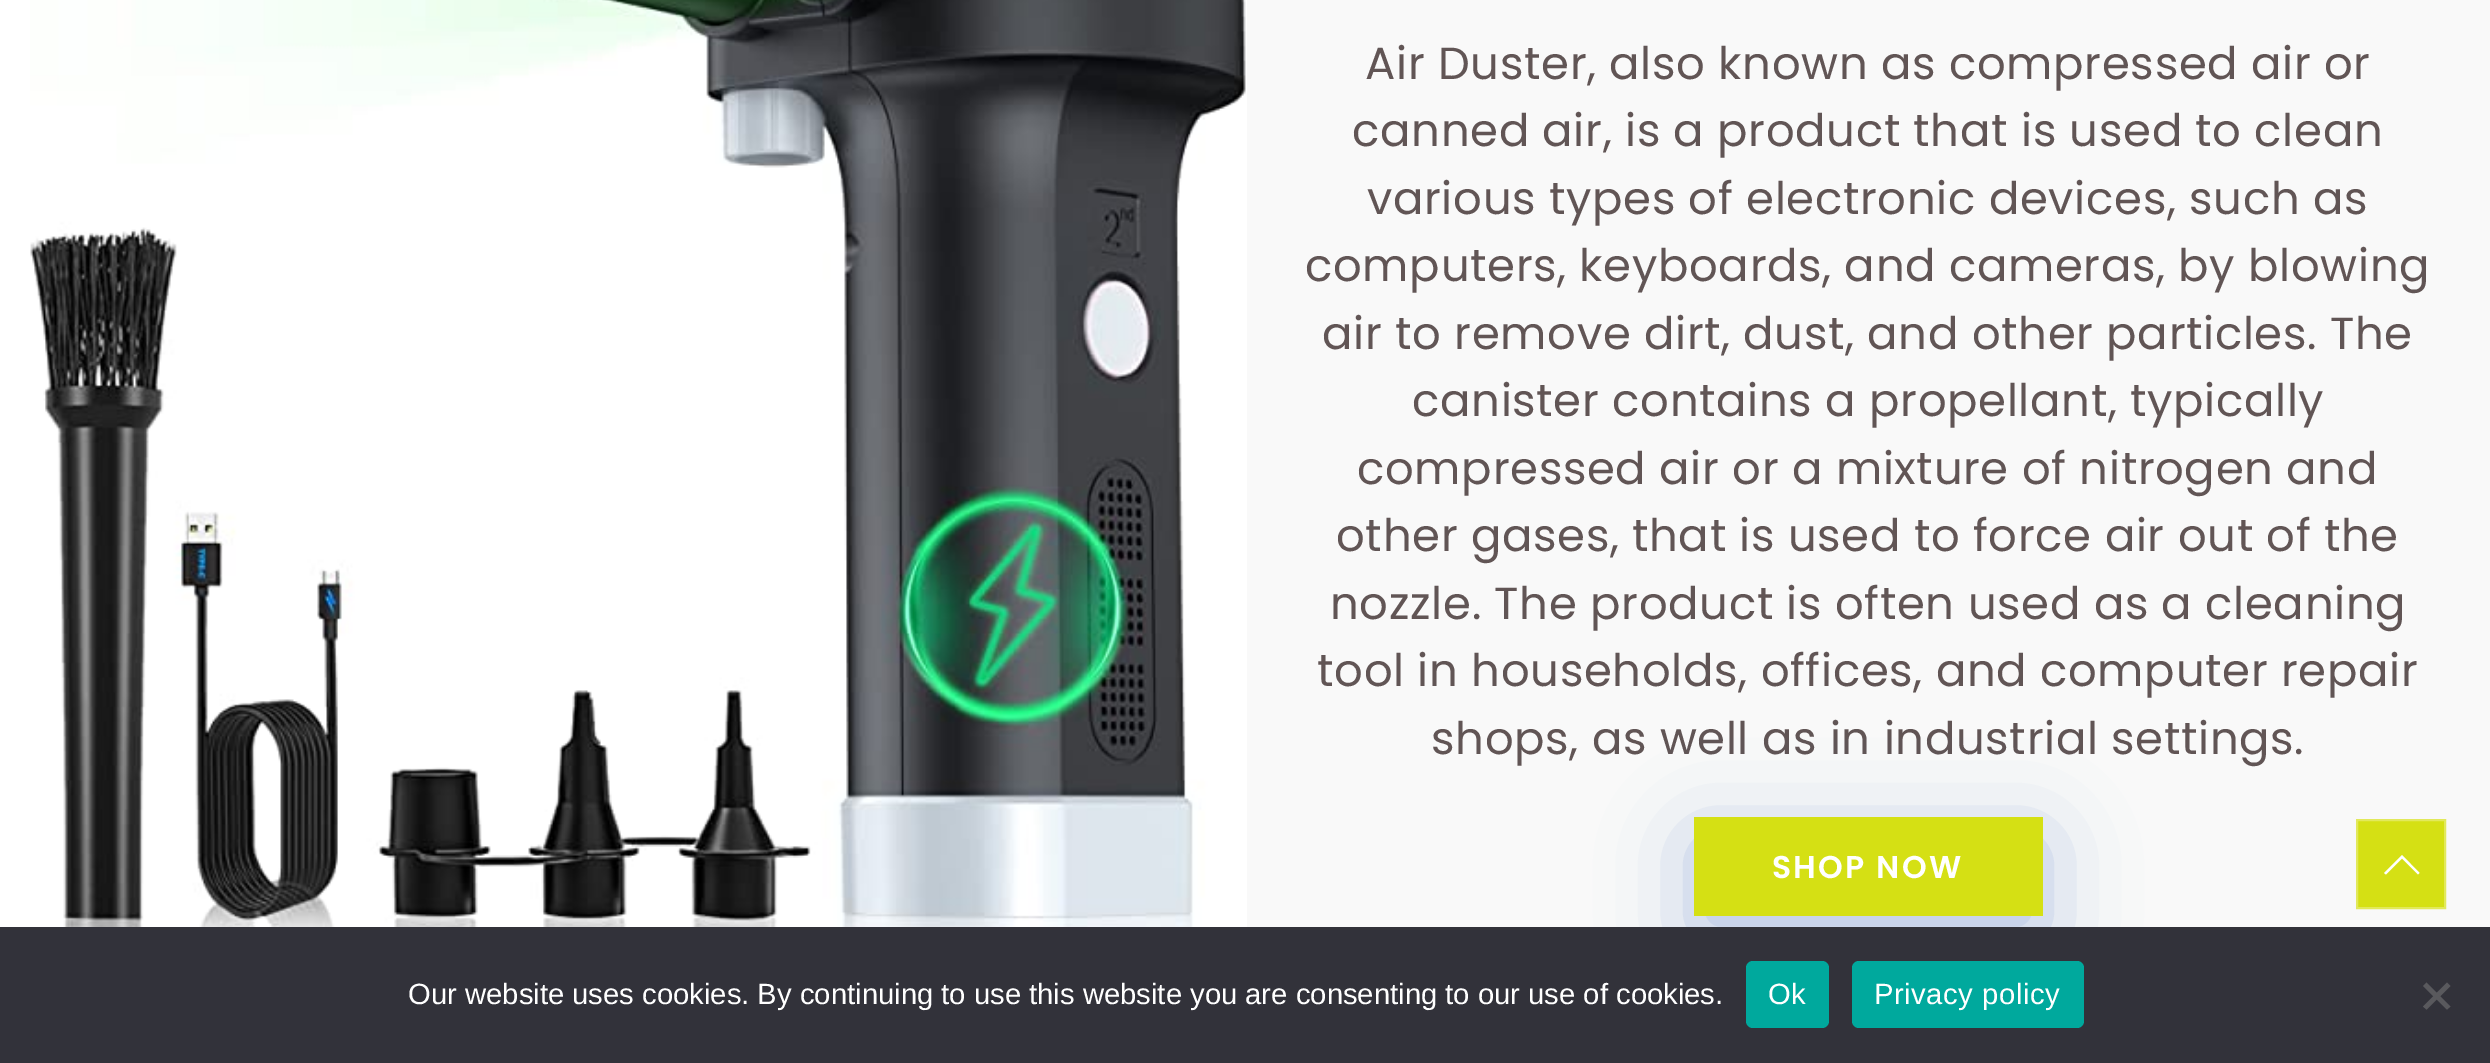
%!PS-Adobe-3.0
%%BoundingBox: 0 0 2490 1063
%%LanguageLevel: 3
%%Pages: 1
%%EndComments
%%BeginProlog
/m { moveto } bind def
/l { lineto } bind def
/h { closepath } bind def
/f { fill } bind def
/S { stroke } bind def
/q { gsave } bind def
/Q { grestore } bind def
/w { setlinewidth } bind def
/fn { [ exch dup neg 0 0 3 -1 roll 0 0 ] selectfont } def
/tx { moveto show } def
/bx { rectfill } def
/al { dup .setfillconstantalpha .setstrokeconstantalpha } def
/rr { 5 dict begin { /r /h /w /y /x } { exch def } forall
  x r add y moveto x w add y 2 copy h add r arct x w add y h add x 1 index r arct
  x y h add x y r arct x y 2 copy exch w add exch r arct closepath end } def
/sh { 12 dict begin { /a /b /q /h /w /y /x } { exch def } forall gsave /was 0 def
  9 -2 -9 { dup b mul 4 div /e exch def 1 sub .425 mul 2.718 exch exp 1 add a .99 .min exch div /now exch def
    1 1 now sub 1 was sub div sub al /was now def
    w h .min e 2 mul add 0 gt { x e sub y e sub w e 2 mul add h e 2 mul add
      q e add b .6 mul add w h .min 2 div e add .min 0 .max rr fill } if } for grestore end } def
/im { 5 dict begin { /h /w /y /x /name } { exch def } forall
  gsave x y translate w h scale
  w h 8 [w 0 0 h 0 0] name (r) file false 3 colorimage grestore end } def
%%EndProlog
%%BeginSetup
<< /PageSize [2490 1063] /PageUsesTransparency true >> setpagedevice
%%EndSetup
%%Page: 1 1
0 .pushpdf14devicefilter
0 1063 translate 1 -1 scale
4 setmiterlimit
1 setgray
0 0 2490 1063 bx
(image0.raw) 30 0 1216 927 im
0.976 setgray
1247 0 1243 927 bx
/Poppins-Regular 45 fn
0.38 0.333 0.333 setrgbcolor
1365 79 m 0.67 0 (Air Duster, also known as compressed air or) ashow
1352 146 m 0.67 0 (canned air, is a product that is used to clean) ashow
1367 214 m 0.67 0 (various types of electronic devices, such as) ashow
1305 281 m 0.67 0 (computers, keyboards, and cameras, by blowing) ashow
1322 349 m 0.67 0 (air to remove dirt, dust, and other particles. The) ashow
1412 416 m 0.67 0 (canister contains a propellant, typically) ashow
1357 484 m 0.67 0 (compressed air or a mixture of nitrogen and) ashow
1336 551 m 0.67 0 (other gases, that is used to force air out of the) ashow
1330 619 m 0.67 0 (nozzle. The product is often used as a cleaning) ashow
1317 686 m 0.67 0 (tool in households, offices, and computer repair) ashow
1431 754 m 0.67 0 (shops, as well as in industrial settings.) ashow
0.075 0.275 0.686 setrgbcolor
1694 839 349 99 0 45 0.3 sh
0.835 0.878 0.078 setrgbcolor
1694 817 349 99 bx
/Poppins-SemiBold 31.5 fn
1 setgray
1772 878 m 2.25 0 (SHOP NOW) ashow
0.835 0.878 0.078 setrgbcolor
2357 820 m 2445 820 l 2445 908 l 2357 908 l h q f Q
0.886 0.914 0.357 setrgbcolor
2 w
S
1 setgray
2419.5 873 m 2418 874.5 l 2402 858.5 l 2386 874.5 l 2384 873 l 2402 855 l h f
0.196 0.196 0.227 setrgbcolor
0 927 2490 136 bx
/LiberationSans-Regular 29.25 fn
1 setgray
(Our website uses cookies. By continuing to use this website you are consenting to our use of cookies.) 408 1004 tx
0 0.663 0.616 setrgbcolor
1746 961 83 67 7 rr f
1 setgray
1768 1004 m 0.5 0 (Ok) ashow
0 0.663 0.616 setrgbcolor
1852 961 232 67 7 rr f
1 setgray
1874 1004 m 0.5 0 (Privacy policy) ashow
0.349 0.349 0.365 setrgbcolor
2447 982.5 m 2450.5 986 l 2426.5 1009.5 l 2423 1006.5 l h f
2423 986 m 2426.5 982.5 l 2450.5 1006.5 l 2447 1009.5 l h f
.poppdf14devicefilter showpage
%%EOF
